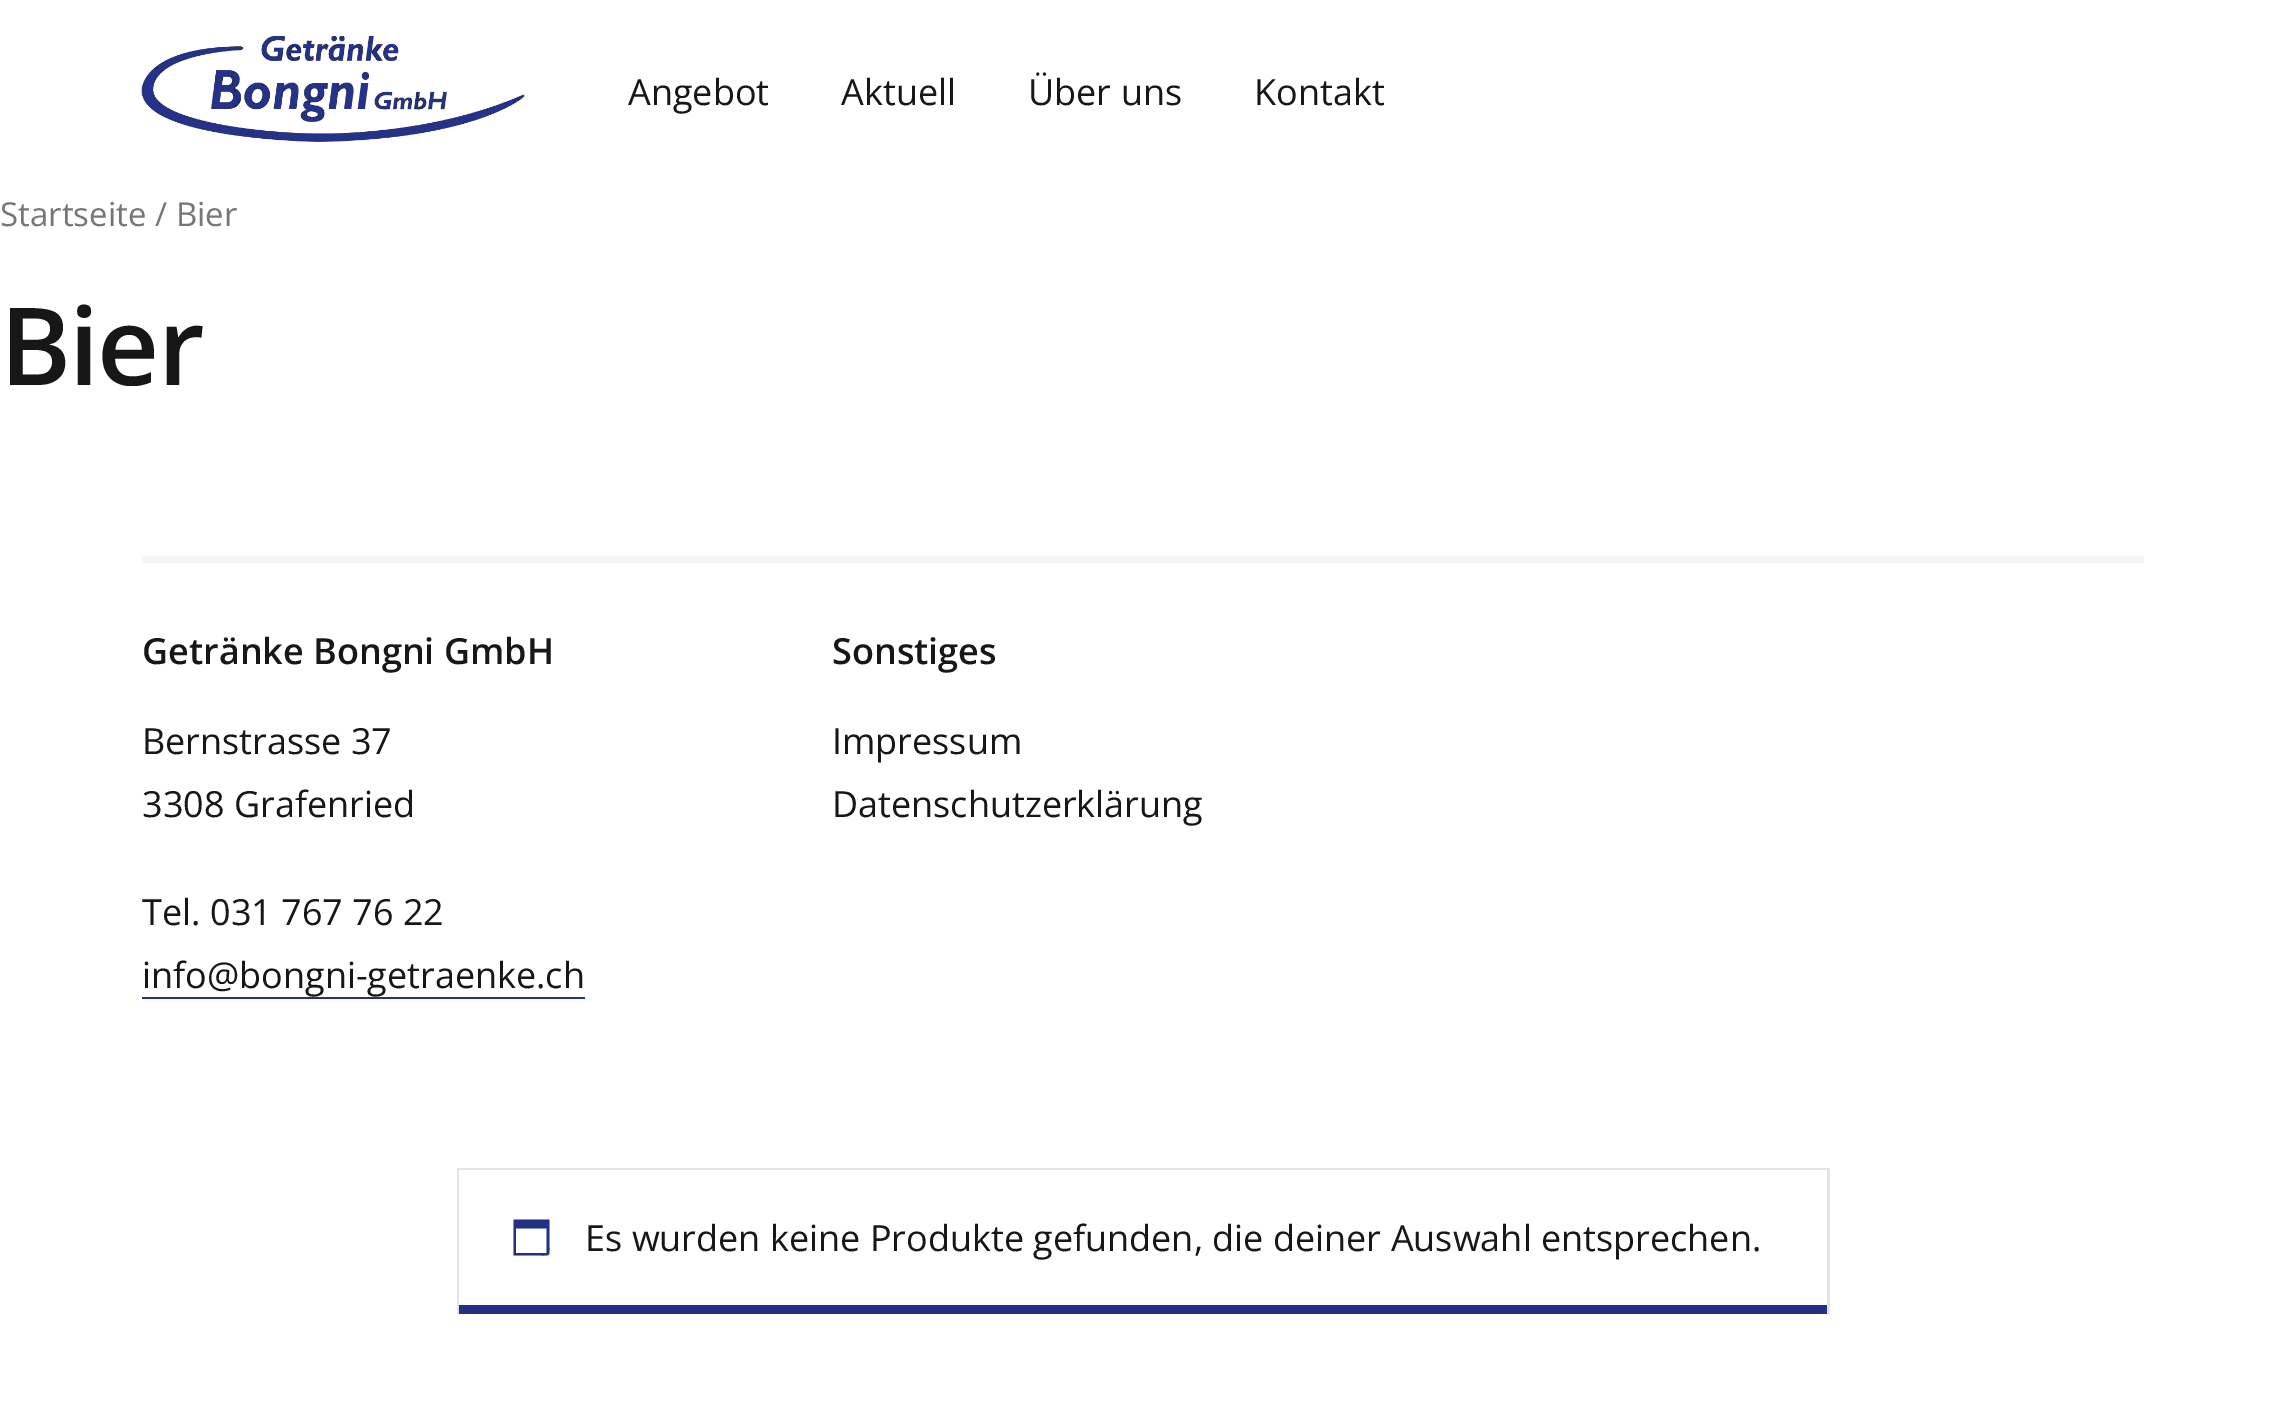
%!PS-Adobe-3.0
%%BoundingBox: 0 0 2286 1403
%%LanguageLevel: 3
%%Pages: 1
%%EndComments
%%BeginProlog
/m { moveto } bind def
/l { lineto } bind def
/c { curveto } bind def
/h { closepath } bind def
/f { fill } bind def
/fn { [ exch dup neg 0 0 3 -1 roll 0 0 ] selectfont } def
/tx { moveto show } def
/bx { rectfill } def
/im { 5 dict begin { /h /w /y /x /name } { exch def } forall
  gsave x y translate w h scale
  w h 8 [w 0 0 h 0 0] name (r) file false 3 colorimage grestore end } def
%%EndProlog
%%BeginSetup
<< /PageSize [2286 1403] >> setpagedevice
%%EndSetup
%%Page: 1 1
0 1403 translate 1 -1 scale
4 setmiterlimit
1 setgray
0 0 2286 1403 bx
(image0.raw) 141 36 384 107 im
/OpenSans-Regular 36 fn
0.09 setgray
(Angebot) 628 105 tx
(Aktuell) 841 105 tx
(Über uns) 1028 105 tx
(Kontakt) 1254 105 tx
/OpenSans-Regular 33 fn
0.463 setgray
(Startseite / Bier) 0 226 tx
/OpenSans-SemiBold 108 fn
0.09 setgray
0 385 m -2 0 (Bier) ashow
0.89 setgray
457 1168 1372 2 bx
1830 1168 m 1830 1314 l 1827 1305 l 1827 1170 l h f
0.898 setgray
1830 1314 m 457 1314 l 459 1305 l 1827 1305 l h f
0.89 setgray
457 1314 m 457 1168 l 459 1170 l 459 1305 l h f
0.137 0.192 0.518 setrgbcolor
546.5 1228.5 m 516 1228.5 l 516 1253 l 546.5 1253 l h 549.5 1219.5 m 549.5 1247 l 549.5 1256 550 1255.5 541.5 1255.5 c 513.5 1255.5 l 513.5 1219.5 l h f
/OpenSans-Regular 36 fn
0.09 setgray
(Es wurden keine Produkte gefunden, die deiner Auswahl entsprechen.) 585 1251 tx
0.137 0.192 0.518 setrgbcolor
459 1305 1368 9 bx
0.961 0.961 0.957 setrgbcolor
142 556 2002 7 bx
/OpenSans-SemiBold 36 fn
0.09 setgray
(Getränke Bongni GmbH) 142 664 tx
/OpenSans-Regular 36 fn
(Bernstrasse 37) 142 754 tx
(3308 Grafenried) 142 817 tx
(Tel. 031 767 76 22) 142 925 tx
(info@bongni-getraenke.ch) 142 988 tx
0.137 0.192 0.518 setrgbcolor
142 997 443 2 bx
/OpenSans-SemiBold 36 fn
0.09 setgray
(Sonstiges) 832 664 tx
/OpenSans-Regular 36 fn
(Impressum) 832 754 tx
(Datenschutzerklärung) 832 817 tx
showpage
%%EOF
